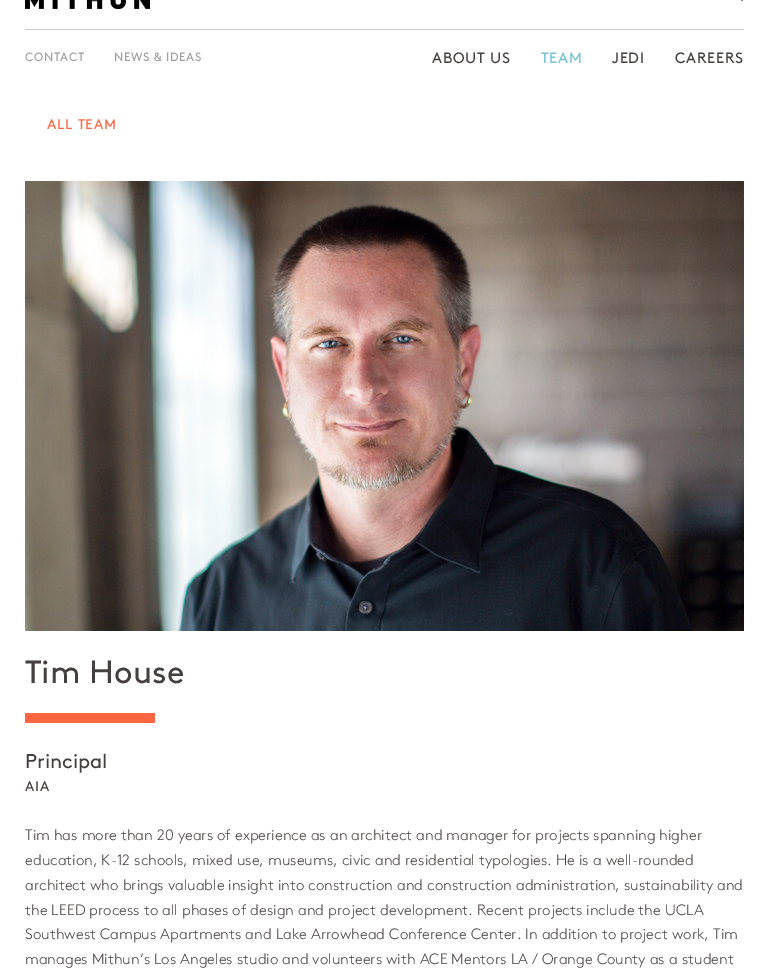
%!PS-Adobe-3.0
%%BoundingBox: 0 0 769 977
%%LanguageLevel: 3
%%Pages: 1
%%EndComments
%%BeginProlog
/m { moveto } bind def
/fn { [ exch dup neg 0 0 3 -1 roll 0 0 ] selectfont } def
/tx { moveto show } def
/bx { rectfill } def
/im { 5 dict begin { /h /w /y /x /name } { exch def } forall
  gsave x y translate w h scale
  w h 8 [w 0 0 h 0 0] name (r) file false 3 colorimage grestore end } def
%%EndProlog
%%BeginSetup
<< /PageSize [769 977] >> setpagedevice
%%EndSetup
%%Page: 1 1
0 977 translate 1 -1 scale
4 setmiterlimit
1 setgray
0 0 769 977 bx
(image0.raw) 25 0 125 9 im
(image1.raw) 740 0 3 1 im
0.792 setgray
25 29 719 1 bx
/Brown-Regular 12 fn
0.62 setgray
25 61 m 0.6 0 (CONTACT) ashow
114 61 m 0.6 0 (NEWS & IDEAS) ashow
/Brown-Regular 15 fn
0.271 0.251 0.251 setrgbcolor
432 63 m 0.75 0 (ABOUT US) ashow
0.455 0.765 0.843 setrgbcolor
541 63 m 0.75 0 (TEAM) ashow
0.271 0.251 0.251 setrgbcolor
612 63 m 0.75 0 (JEDI) ashow
675 63 m 0.75 0 (CAREERS) ashow
/Brown-Regular 14 fn
1 0.404 0.259 setrgbcolor
47 129 m 0.75 0 (ALL TEAM) ashow
(image2.raw) 25 181 719 450 im
/Brown-Regular 32.25 fn
0.271 0.251 0.251 setrgbcolor
(Tim House) 25 683 tx
1 0.404 0.259 setrgbcolor
25 713 130 10 bx
/Brown-Regular 20 fn
0.271 0.251 0.251 setrgbcolor
(Principal) 25 768 tx
/Brown-Regular 14 fn
25 791 m 1 0 (AIA) ashow
/Brown-Light 15 fn
(Tim has more than 20 years of experience as an architect and manager for projects spanning higher) 25 840 tx
(education, K-12 schools, mixed use, museums, civic and residential typologies. He is a well-rounded) 25 865 tx
(architect who brings valuable insight into construction and construction administration, sustainability and) 25 890 tx
(the LEED process to all phases of design and project development. Recent projects include the UCLA) 25 915 tx
(Southwest Campus Apartments and Lake Arrowhead Conference Center. In addition to project work, Tim) 25 939 tx
(manages Mithun’s Los Angeles studio and volunteers with ACE Mentors LA / Orange County as a student) 25 964 tx
showpage
%%EOF
